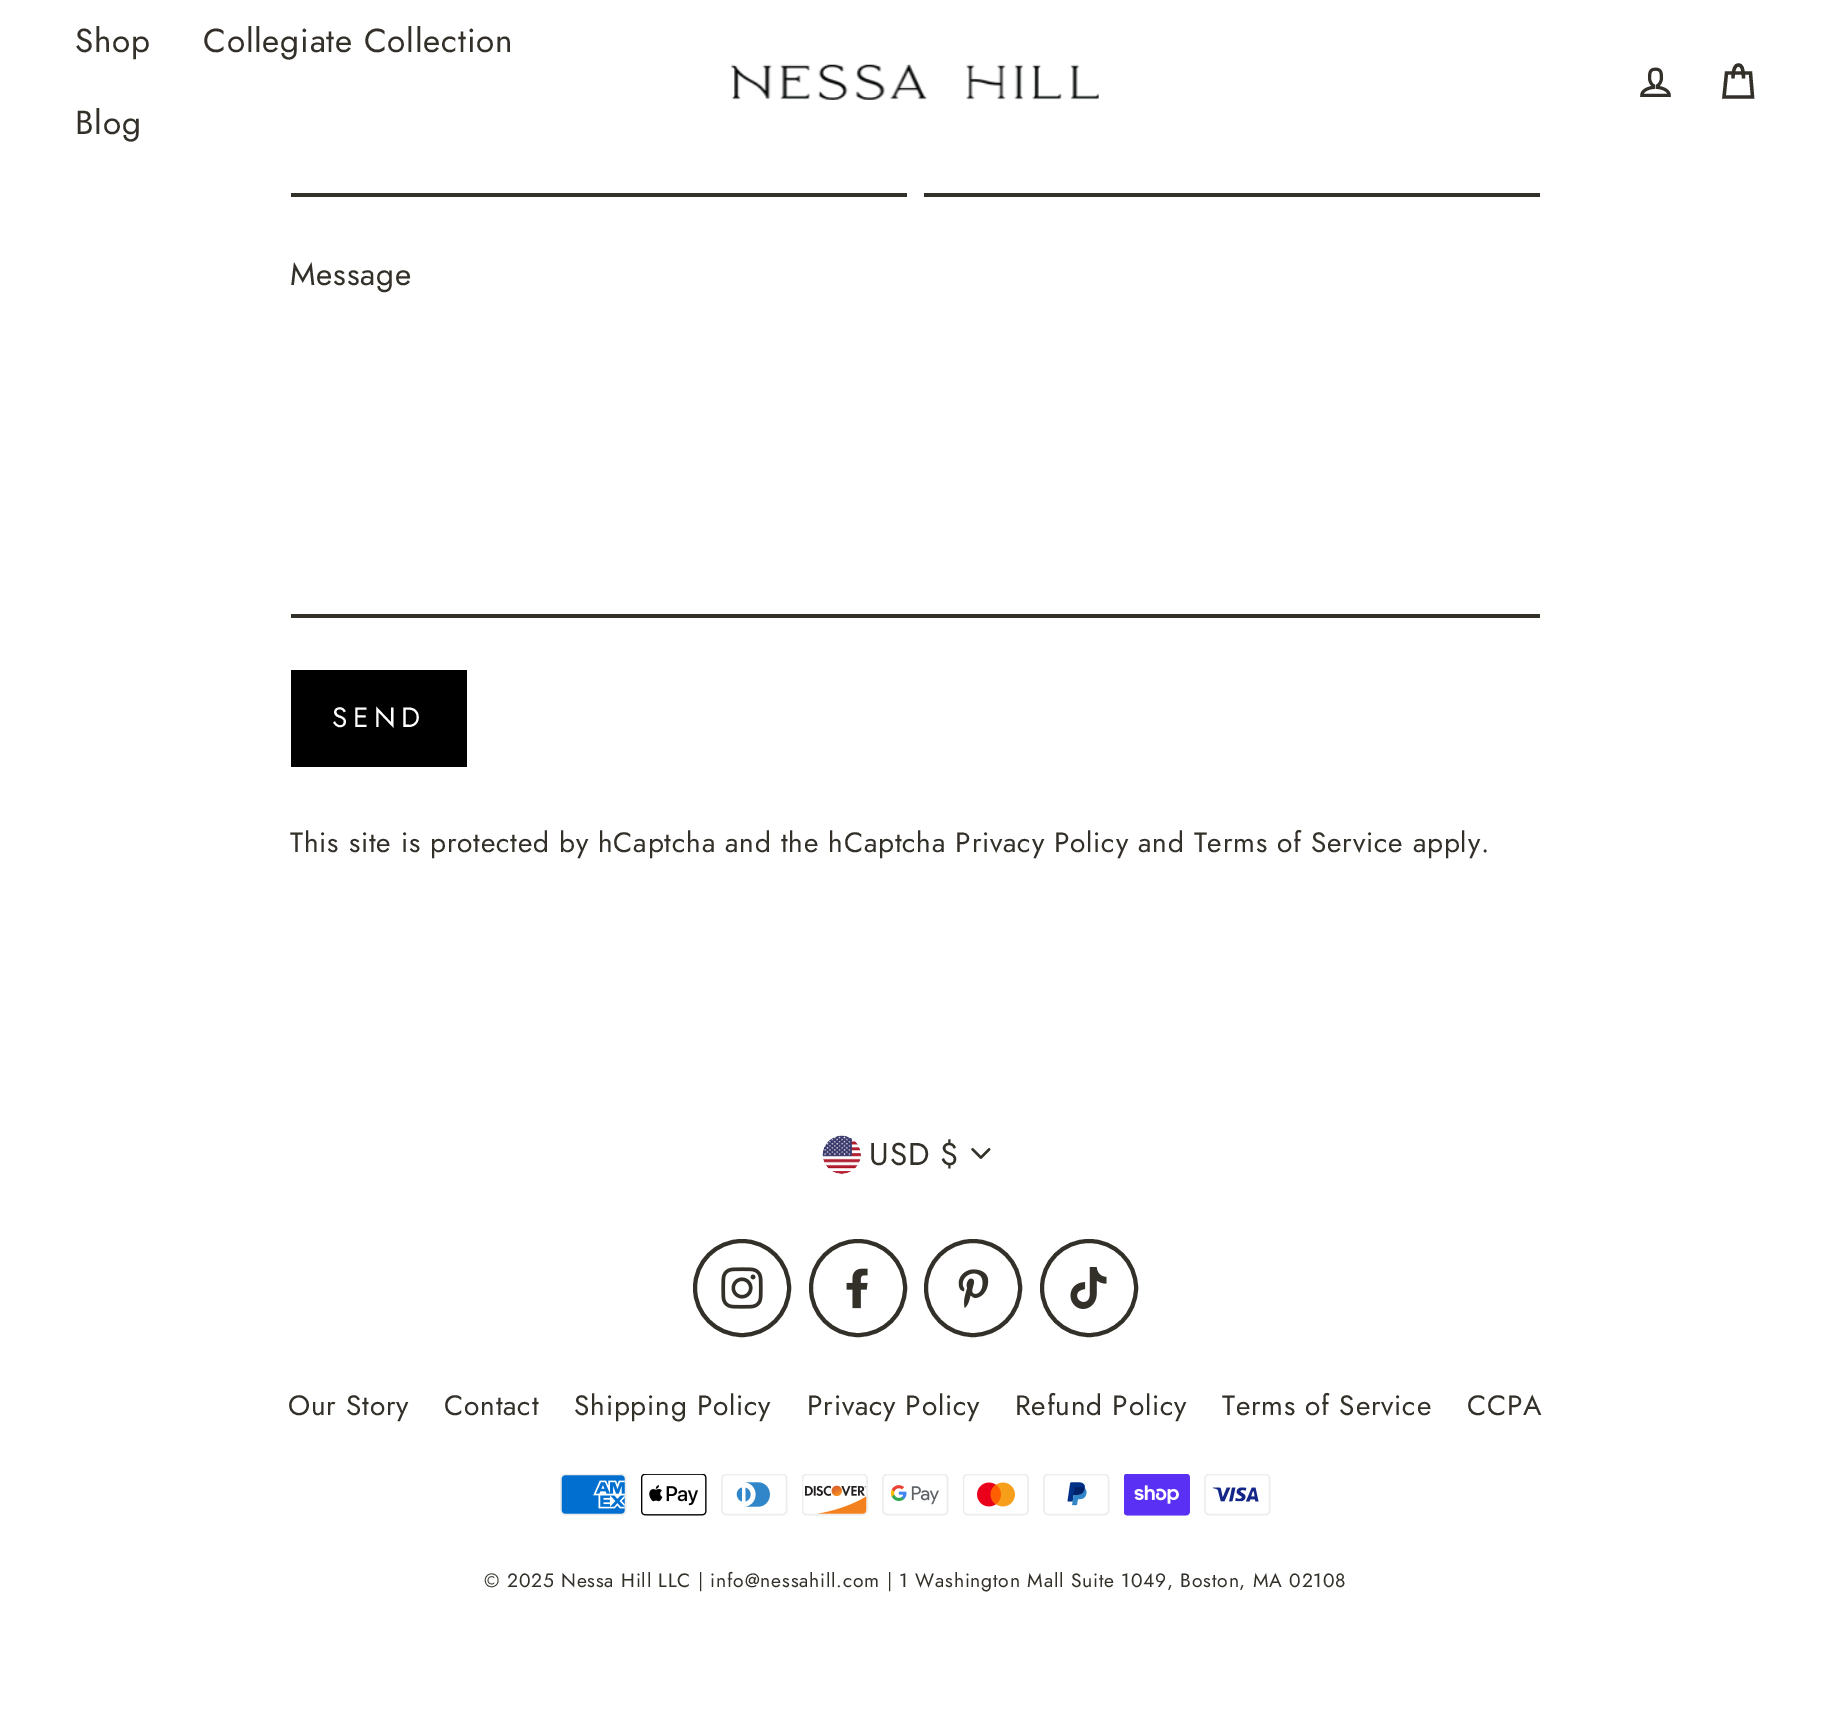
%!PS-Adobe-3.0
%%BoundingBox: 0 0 1829 1726
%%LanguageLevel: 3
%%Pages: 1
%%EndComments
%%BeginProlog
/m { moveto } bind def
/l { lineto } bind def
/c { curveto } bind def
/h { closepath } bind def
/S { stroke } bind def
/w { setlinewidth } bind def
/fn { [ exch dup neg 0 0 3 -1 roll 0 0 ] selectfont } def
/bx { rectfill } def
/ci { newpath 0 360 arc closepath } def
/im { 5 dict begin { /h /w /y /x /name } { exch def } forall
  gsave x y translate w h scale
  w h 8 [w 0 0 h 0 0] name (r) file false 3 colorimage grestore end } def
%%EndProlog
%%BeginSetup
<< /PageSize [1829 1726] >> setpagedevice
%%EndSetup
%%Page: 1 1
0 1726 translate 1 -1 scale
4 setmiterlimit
1 setgray
0 0 1829 1726 bx
/Jost-Regular 33.25 fn
0.2 0.188 0.161 setrgbcolor
75 52 m 0.8 0 (Shop) ashow
203 52 m 0.8 0 (Collegiate Collection) ashow
75 134 m 0.8 0 (Blog) ashow
(image0.raw) 731 64 368 36 im
(image1.raw) 1640 67 31 30 im
3.3 w
1733 78.5 m 1733 68 1735.5 65 1738.5 65 c 1741.5 65 1743.5 68 1743.5 78.5 c 1726.5 73 m 1750.5 73 l 1752.5 97 l 1724 97 l h S
291 193 616 4 bx
924 193 616 4 bx
/Jost-Regular 31.5 fn
290 285 m 0.8 0 (Message) ashow
291 614 1249 4 bx
0 setgray
291 670 176 97 bx
/Jost-Regular 28 fn
1 setgray
332 727 m 5.5 0 (SEND) ashow
0.2 0.188 0.161 setrgbcolor
290 852 m 0.8 0 (This site is protected by hCaptcha and the hCaptcha Privacy Policy and Terms of Service apply.) ashow
(image2.raw) 971 1148 20 11 im
(image3.raw) 822 1135 39 39 im
/Jost-Regular 31.5 fn
869 1165 m 0.8 0 (USD $) ashow
4 w
742 1288 47 ci S
(image4.raw) 721 1267 42 42 im
858 1288 47 ci S
(image5.raw) 846 1268 22 41 im
973 1288 47 ci S
(image6.raw) 958 1269 31 39 im
1089 1288 47 ci S
(image7.raw) 1070 1267 37 42 im
/Jost-Regular 28 fn
288 1415 m 0.8 0 (Our Story) ashow
444 1415 m 0.8 0 (Contact) ashow
574 1415 m 0.8 0 (Shipping Policy) ashow
807 1415 m 0.8 0 (Privacy Policy) ashow
1015 1415 m 0.8 0 (Refund Policy) ashow
1222 1415 m 0.8 0 (Terms of Service) ashow
1467 1415 m 0.8 0 (CCPA) ashow
(image8.raw) 560 1474 67 42 im
(image9.raw) 641 1474 66 42 im
(image10.raw) 721 1474 67 42 im
(image11.raw) 802 1474 66 42 im
(image12.raw) 882 1474 67 42 im
(image13.raw) 963 1474 66 42 im
(image14.raw) 1043 1474 67 42 im
(image15.raw) 1124 1474 66 42 im
(image16.raw) 1204 1474 67 42 im
/Jost-Regular 19.25 fn
484 1587 m 0.8 0 (© 2025 Nessa Hill LLC | info@nessahill.com | 1 Washington Mall Suite 1049, Boston, MA 02108) ashow
showpage
%%EOF
